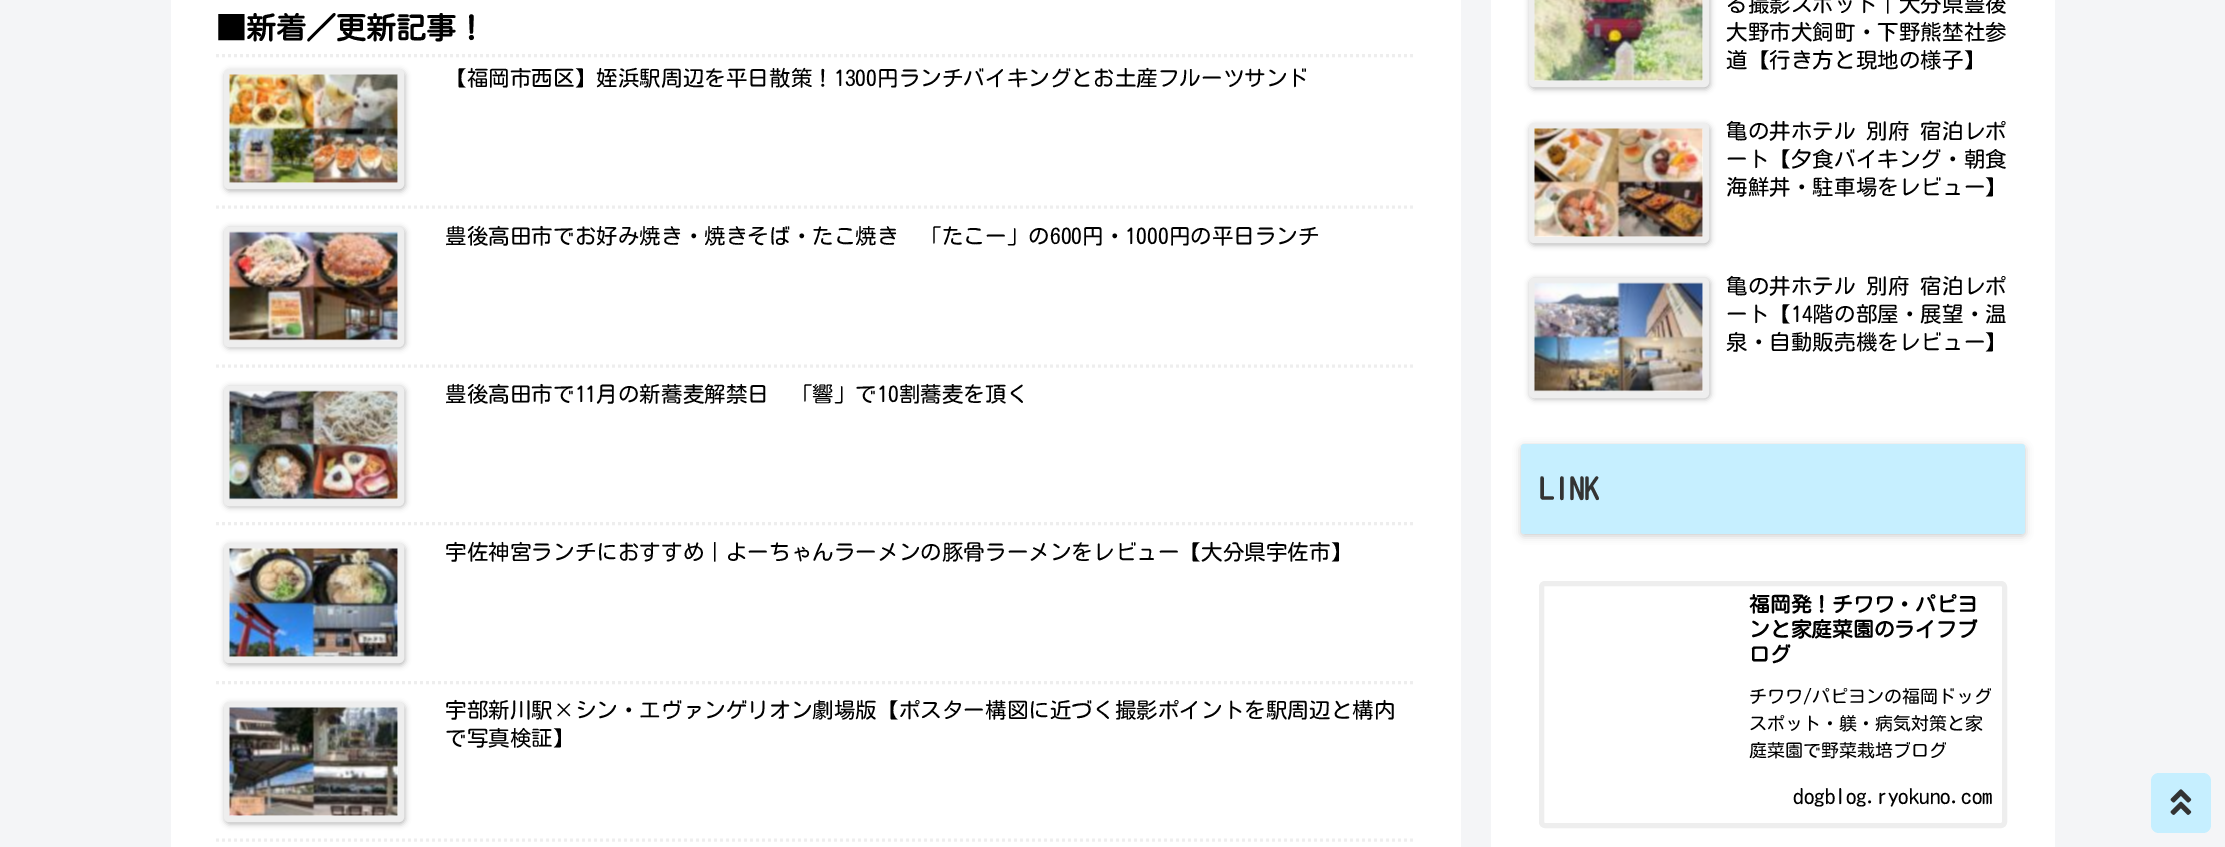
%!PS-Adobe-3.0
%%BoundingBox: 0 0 2225 847
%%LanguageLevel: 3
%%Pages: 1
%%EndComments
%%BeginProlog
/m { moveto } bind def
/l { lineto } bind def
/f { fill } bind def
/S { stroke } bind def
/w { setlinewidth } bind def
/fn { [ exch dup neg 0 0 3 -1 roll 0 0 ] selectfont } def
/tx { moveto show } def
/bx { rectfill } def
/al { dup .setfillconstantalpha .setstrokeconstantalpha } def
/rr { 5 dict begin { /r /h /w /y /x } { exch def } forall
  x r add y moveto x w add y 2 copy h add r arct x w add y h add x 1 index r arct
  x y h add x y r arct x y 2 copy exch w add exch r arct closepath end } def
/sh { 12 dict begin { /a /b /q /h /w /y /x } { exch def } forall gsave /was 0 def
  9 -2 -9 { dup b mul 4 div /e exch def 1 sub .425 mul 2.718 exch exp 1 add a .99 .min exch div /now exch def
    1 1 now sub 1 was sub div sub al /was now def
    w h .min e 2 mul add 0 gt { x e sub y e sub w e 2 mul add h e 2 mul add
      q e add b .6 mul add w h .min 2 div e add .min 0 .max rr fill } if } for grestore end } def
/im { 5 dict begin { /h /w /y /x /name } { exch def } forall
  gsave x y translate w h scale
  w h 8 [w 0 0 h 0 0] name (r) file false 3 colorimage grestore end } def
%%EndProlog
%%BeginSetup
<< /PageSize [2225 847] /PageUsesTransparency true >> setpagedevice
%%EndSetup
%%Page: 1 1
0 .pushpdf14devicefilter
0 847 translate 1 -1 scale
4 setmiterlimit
0.957 0.961 0.969 setrgbcolor
0 0 2225 847 bx
1 setgray
171 0 1290 847 bx
/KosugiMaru-Bold 30 fn
0 setgray
(■新着／更新記事！) 216 39 tx
0.933 setgray
3 w
[3 3] 0 setdash
216 55.5 m 1416 55.5 l S
216 207 m 1416 207 l S
0 setgray
225 71 180 120 5 3 0.3 sh
0.933 setgray
6 w
[] 0 setdash
227 72 174 114 2 rr S
(image0.raw) 229 74 169 109 im
/KosugiMaru-Regular 21.6 fn
0 setgray
(【福岡市西区】姪浜駅周辺を平日散策！1300円ランチバイキングとお土産フルーツサンド) 445 86 tx
0.933 setgray
3 w
[3 3] 0 setdash
216 366 m 1416 366 l S
0 setgray
225 228 180 120 5 3 0.3 sh
0.933 setgray
6 w
[] 0 setdash
227 230 174 114 2 rr S
(image1.raw) 229 231 169 110 im
0 setgray
(豊後高田市でお好み焼き・焼きそば・たこ焼き　「たこー」の600円・1000円の平日ランチ) 445 244 tx
0.933 setgray
3 w
[3 3] 0 setdash
216 523.5 m 1416 523.5 l S
0 setgray
225 387 180 120 5 3 0.3 sh
0.933 setgray
6 w
[] 0 setdash
227 389 174 114 2 rr S
(image2.raw) 229 390 169 110 im
0 setgray
(豊後高田市で11月の新蕎麦解禁日　「響」で10割蕎麦を頂く) 445 402 tx
0.933 setgray
3 w
[3 3] 0 setdash
216 682.5 m 1416 682.5 l S
0 setgray
225 545 180 120 5 3 0.3 sh
0.933 setgray
6 w
[] 0 setdash
227 546 174 114 2 rr S
(image3.raw) 229 548 169 109 im
0 setgray
(宇佐神宮ランチにおすすめ｜よーちゃんラーメンの豚骨ラーメンをレビュー【大分県宇佐市】) 445 560 tx
0.933 setgray
3 w
[3 3] 0 setdash
216 840 m 1416 840 l S
0 setgray
225 704 180 120 5 3 0.3 sh
0.933 setgray
6 w
[] 0 setdash
227 705 174 114 2 rr S
(image4.raw) 229 707 169 109 im
0 setgray
(宇部新川駅×シン・エヴァンゲリオン劇場版【ポスター構図に近づく撮影ポイントを駅周辺と構内) 445 718 tx
(で写真検証】) 445 746 tx
1 setgray
1491 0 564 847 bx
0 setgray
1530 -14 180 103 5 3 0.3 sh
0.933 setgray
1532 -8 174 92 2 rr S
(image5.raw) 1534 0 169 81 im
0 setgray
(る撮影スポット｜大分県豊後) 1726 12 tx
(大野市犬飼町・下野熊埜社参) 1726 40 tx
(道【行き方と現地の様子】) 1726 68 tx
1530 125 180 120 5 3 0.3 sh
0.933 setgray
1532 126 174 114 2 rr S
(image6.raw) 1534 128 169 109 im
0 setgray
(亀の井ホテル 別府 宿泊レポ) 1726 139 tx
(ート【夕食バイキング・朝食) 1726 167 tx
(海鮮丼・駐車場をレビュー】) 1726 195 tx
1530 279 180 120 5 3 0.3 sh
0.933 setgray
1532 281 174 114 2 rr S
(image7.raw) 1534 282 169 110 im
0 setgray
(亀の井ホテル 別府 宿泊レポ) 1726 294 tx
(ート【14階の部屋・展望・温) 1726 322 tx
(泉・自動販売機をレビュー】) 1726 350 tx
1521 446 504 90 3 4 0.2 sh
0.776 0.937 1 setrgbcolor
1521 444 504 90 3 rr f
/KosugiMaru-Bold 30 fn
0.2 setgray
(LINK) 1539 500 tx
0.933 setgray
5 w
1541.5 583.5 463 242 3.5 rr S
/KosugiMaru-Bold 20.75 fn
0 setgray
(福岡発！チワワ・パピヨ) 1749 612 tx
(ンと家庭菜園のライフブ) 1749 637 tx
(ログ) 1749 662 tx
/KosugiMaru-Regular 18 fn
(チワワ/パピヨンの福岡ドッグ) 1749 703 tx
(スポット・躾・病気対策と家) 1749 730 tx
(庭菜園で野菜栽培ブログ) 1749 757 tx
/KosugiMaru-Regular 21 fn
(dogblog.ryokuno.com) 1793 804 tx
0.776 0.937 1 setrgbcolor
2151 773 60 60 8 rr f
(image8.raw) 2170 789 22 26 im
.poppdf14devicefilter showpage
%%EOF
